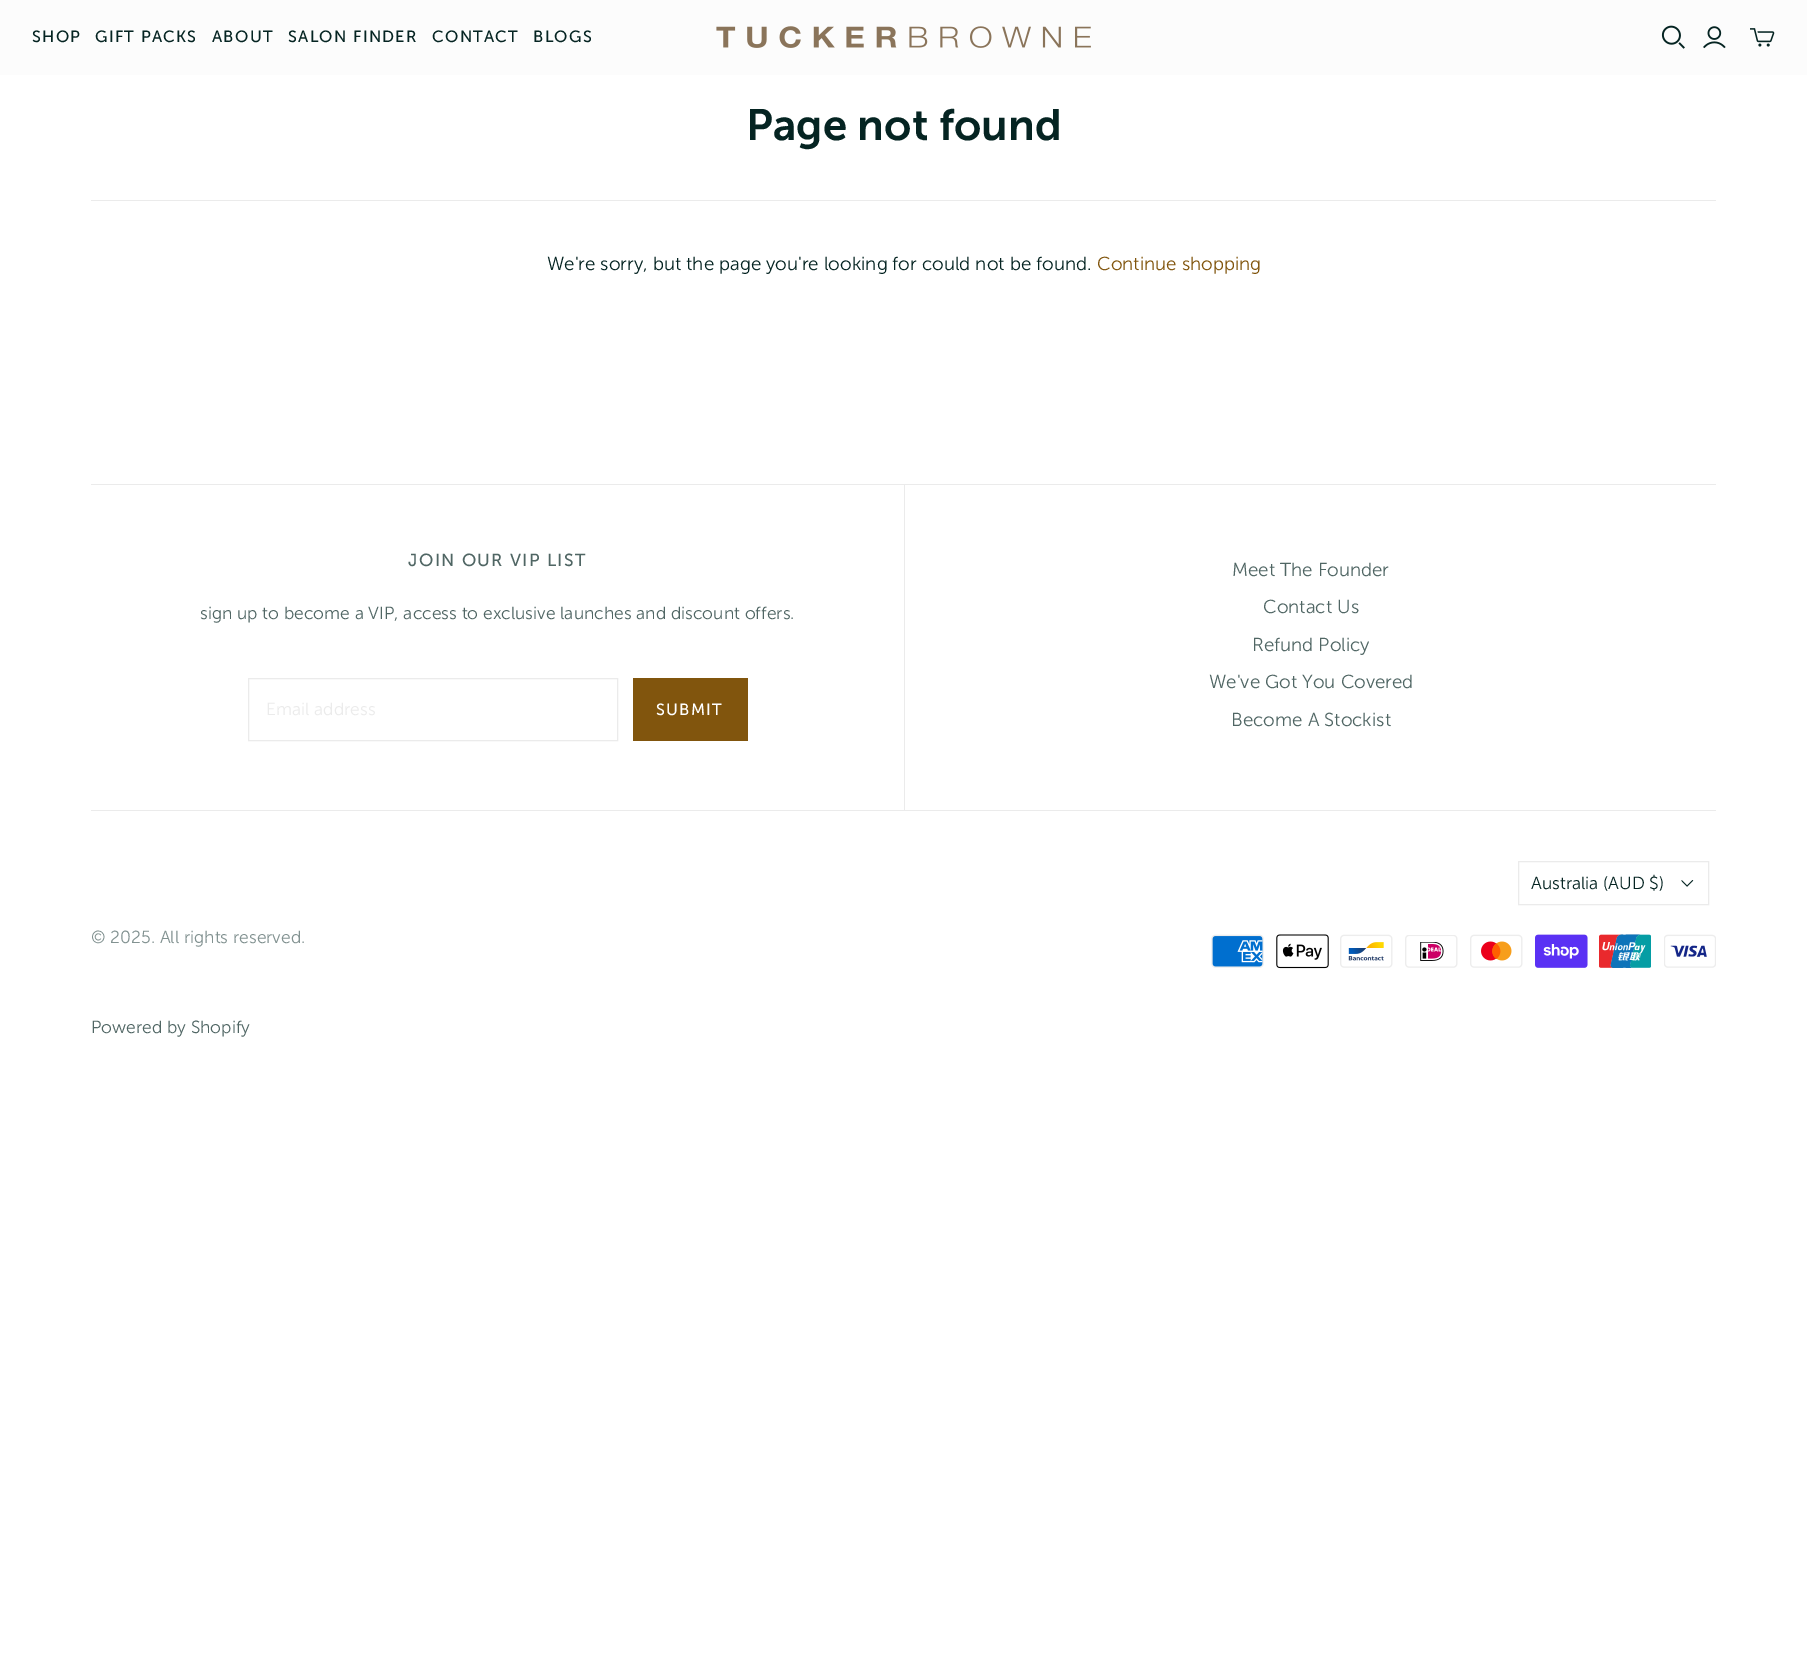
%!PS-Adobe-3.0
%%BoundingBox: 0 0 1807 1655
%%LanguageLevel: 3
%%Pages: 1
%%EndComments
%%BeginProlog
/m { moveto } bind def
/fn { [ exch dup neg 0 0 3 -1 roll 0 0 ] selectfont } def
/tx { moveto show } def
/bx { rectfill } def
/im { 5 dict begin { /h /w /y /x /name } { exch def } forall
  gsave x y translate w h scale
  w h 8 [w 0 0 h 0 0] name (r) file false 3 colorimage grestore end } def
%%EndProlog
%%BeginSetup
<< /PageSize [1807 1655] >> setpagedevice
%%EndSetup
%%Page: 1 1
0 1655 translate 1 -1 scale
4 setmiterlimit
1 setgray
0 0 1807 1655 bx
0.988 setgray
0 0 1807 75 bx
/MuseoSans-Regular 16.25 fn
0.02 0.141 0.133 setrgbcolor
32 42 m 1.25 0 (SHOP) ashow
95 42 m 1.25 0 (GIFT PACKS) ashow
212 42 m 1.25 0 (ABOUT) ashow
288 42 m 1.25 0 (SALON FINDER) ashow
432 42 m 1.25 0 (CONTACT) ashow
533 42 m 1.25 0 (BLOGS) ashow
(image0.raw) 716 26 375 22 im
(image1.raw) 1661 25 24 24 im
(image2.raw) 1703 26 23 23 im
(image3.raw) 1750 28 25 19 im
0.922 setgray
91 200 1625 1 bx
/MuseoSans-SemiBold 43.75 fn
0.02 0.141 0.133 setrgbcolor
(Page not found) 746 140 tx
/MuseoSans-Light 18.75 fn
(We're sorry, but the page you're looking for could not be found.) 547 270 tx
0.506 0.333 0.051 setrgbcolor
(Continue shopping) 1097 270 tx
0.922 setgray
91 484 1625 1 bx
91 810 1625 1 bx
/MuseoSans-Regular 17.5 fn
0.314 0.4 0.392 setrgbcolor
408 566 m 1.4 0 (JOIN OUR VIP LIST) ashow
/MuseoSans-Light 17.5 fn
(sign up to become a VIP, access to exclusive launches and discount offers.) 200 619 tx
0.922 setgray
248.5 678.5 369 62 rectstroke
(Email address) 266 715 tx
0.506 0.333 0.051 setrgbcolor
633 678 115 63 bx
/MuseoSans-Regular 16.25 fn
1 setgray
656 715 m 1.25 0 (SUBMIT) ashow
0.922 setgray
904 485 1 325 bx
/MuseoSans-Light 18.75 fn
0.314 0.4 0.392 setrgbcolor
(Meet The Founder) 1232 576 tx
(Contact Us) 1263 613 tx
(Refund Policy) 1252 651 tx
(We've Got You Covered) 1209 688 tx
(Become A Stockist) 1231 726 tx
0.922 setgray
1518.5 861.5 190 43 rectstroke
/MuseoSans-Light 17.5 fn
0.02 0.141 0.133 setrgbcolor
(Australia \(AUD $\)) 1531 889 tx
(image4.raw) 1681 880 13 7 im
(image5.raw) 1211 934 53 34 im
(image6.raw) 1276 934 53 35 im
(image7.raw) 1340 934 53 34 im
(image8.raw) 1405 935 53 33 im
(image9.raw) 1470 934 53 34 im
(image10.raw) 1535 934 53 34 im
(image11.raw) 1599 934 52 34 im
(image12.raw) 1664 934 52 34 im
0.51 0.573 0.569 setrgbcolor
(© 2025. All rights reserved.) 91 943 tx
0.314 0.4 0.392 setrgbcolor
(Powered by Shopify) 91 1033 tx
showpage
%%EOF
